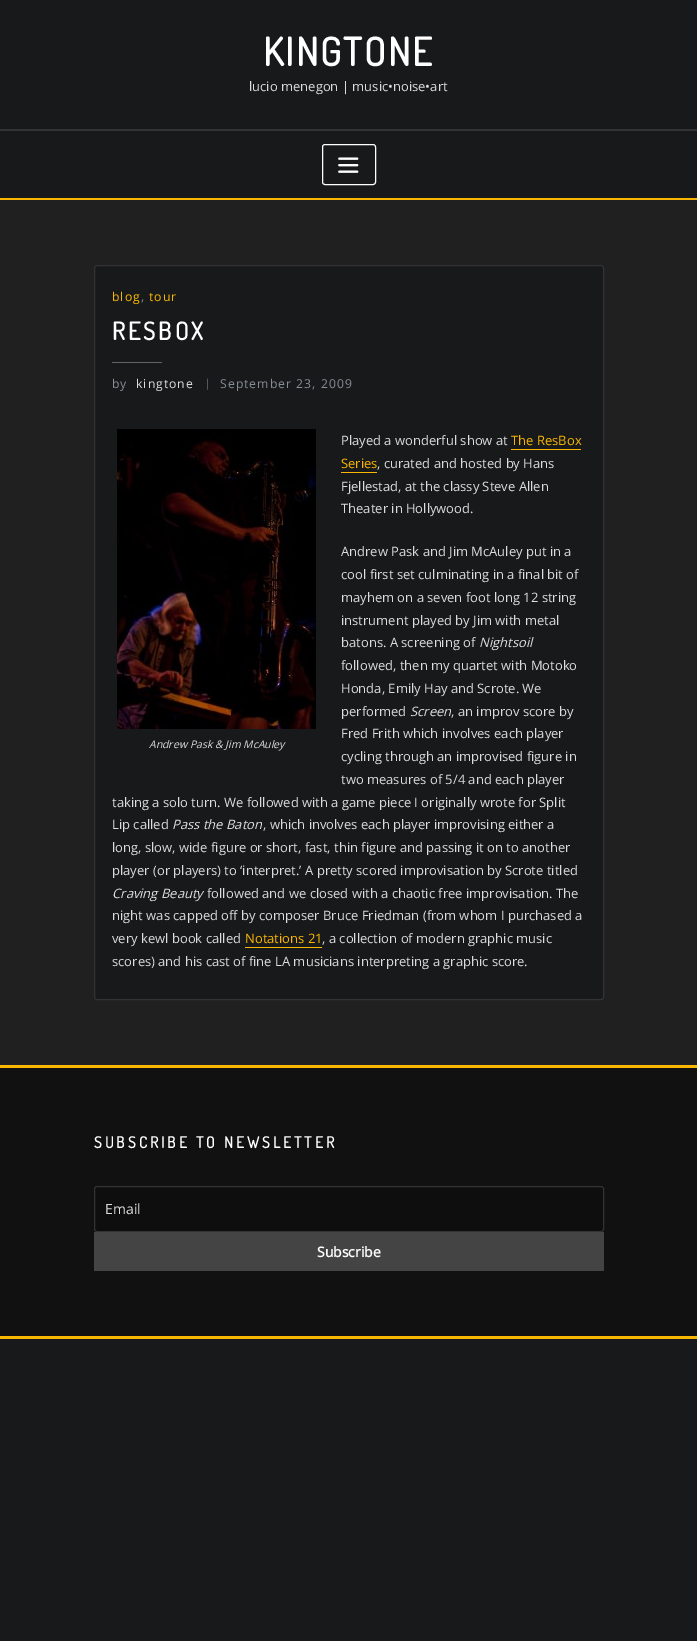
%!PS-Adobe-3.0
%%BoundingBox: 0 0 697 1641
%%LanguageLevel: 3
%%Pages: 1
%%EndComments
%%BeginProlog
/m { moveto } bind def
/f { fill } bind def
/S { stroke } bind def
/q { gsave } bind def
/Q { grestore } bind def
/fn { [ exch dup neg 0 0 3 -1 roll 0 0 ] selectfont } def
/tx { moveto show } def
/bx { rectfill } def
/rr { 5 dict begin { /r /h /w /y /x } { exch def } forall
  x r add y moveto x w add y 2 copy h add r arct x w add y h add x 1 index r arct
  x y h add x y r arct x y 2 copy exch w add exch r arct closepath end } def
/im { 5 dict begin { /h /w /y /x /name } { exch def } forall
  gsave x y translate w h scale
  w h 8 [w 0 0 h 0 0] name (r) file false 3 colorimage grestore end } def
%%EndProlog
%%BeginSetup
<< /PageSize [697 1641] >> setpagedevice
%%EndSetup
%%Page: 1 1
0 1641 translate 1 -1 scale
4 setmiterlimit
0.094 0.098 0.106 setrgbcolor
0 0 697 1641 bx
/Dosis-Bold 39 fn
1 setgray
263 66 m 2 0 (KINGTONE) ashow
/OpenSans-Regular 13 fn
0.867 setgray
(lucio menegon | music•noise•art) 249 91 tx
0.2 setgray
0 129 697 2 bx
0.98 0.718 0.008 setrgbcolor
0 198 697 2 bx
1 setgray
322.5 144.5 53 40 2.5 rr S
(image0.raw) 338 157 21 16 im
0.125 setgray
0 200 697 865 bx
0.094 0.098 0.106 setrgbcolor
94.5 265.5 509 734 2.5 rr q f Q
0.2 setgray
S
/OpenSans-Regular 12.25 fn
0.98 0.718 0.008 setrgbcolor
112 301 m 1 0 (blog) ashow
0.529 0.557 0.58 setrgbcolor
141 301 m 1 0 (,) ashow
0.98 0.718 0.008 setrgbcolor
149 301 m 1 0 (tour) ashow
/Dosis-Bold 24.5 fn
1 setgray
112 340 m 3 0 (RESBOX) ashow
0.384 0.388 0.392 setrgbcolor
112 362 50 1 bx
/OpenSans-Regular 12.25 fn
0.529 0.557 0.58 setrgbcolor
112 388 m 1 0 (by) ashow
0.867 setgray
136 388 m 1 0 (kingtone) ashow
/LiberationSerif-Regular 12.25 fn
0.529 0.557 0.58 setrgbcolor
206 387 m 1 0 (|) ashow
/OpenSans-Regular 12.25 fn
220 388 m 1 0 (September 23, 2009) ashow
/OpenSans-Regular 13 fn
0.867 setgray
(Played a wonderful show at) 341 445 tx
0.98 0.718 0.008 setrgbcolor
(The ResBox) 511 445 tx
511 449 70 1 bx
(Series) 341 468 tx
341 472 36 1 bx
0.867 setgray
(, curated and hosted by Hans) 377 468 tx
(Fjellestad, at the classy Steve Allen) 341 491 tx
(Theater in Hollywood.) 341 513 tx
(Andrew Pask and Jim McAuley put in a) 341 556 tx
(cool first set culminating in a final bit of) 341 579 tx
(mayhem on a seven foot long 12 string) 341 602 tx
(instrument played by Jim with metal) 341 625 tx
(batons. A screening of) 341 647 tx
/OpenSans-Italic 13 fn
(Nightsoil) 479 647 tx
/OpenSans-Regular 13 fn
(followed, then my quartet with Motoko) 341 670 tx
(Honda, Emily Hay and Scrote. We) 341 693 tx
(performed) 341 716 tx
/OpenSans-Italic 13 fn
(Screen) 410 716 tx
/OpenSans-Regular 13 fn
(, an improv score by) 451 716 tx
(Fred Frith which involves each player) 341 738 tx
(cycling through an improvised figure in) 341 761 tx
(two measures of 5/4 and each player) 341 784 tx
(taking a solo turn. We followed with a game piece I originally wrote for Split) 112 807 tx
(Lip called) 112 829 tx
/OpenSans-Italic 13 fn
(Pass the Baton) 172 829 tx
/OpenSans-Regular 13 fn
(, which involves each player improvising either a) 263 829 tx
(long, slow, wide figure or short, fast, thin figure and passing it on to another) 112 852 tx
(player \(or players\) to ‘interpret.’ A pretty scored improvisation by Scrote titled) 112 875 tx
/OpenSans-Italic 13 fn
(Craving Beauty) 112 898 tx
/OpenSans-Regular 13 fn
(followed and we closed with a chaotic free improvisation. The) 207 898 tx
(night was capped off by composer Bruce Friedman \(from whom I purchased a) 112 920 tx
(very kewl book called) 112 943 tx
0.98 0.718 0.008 setrgbcolor
(Notations 21) 245 943 tx
245 947 77 1 bx
0.867 setgray
(, a collection of modern graphic music) 322 943 tx
(scores\) and his cast of fine LA musicians interpreting a graphic score.) 112 966 tx
(image1.raw) 117 429 199 300 im
/OpenSans-Italic 10.5 fn
(Andrew Pask & Jim McAuley) 149 748 tx
0.067 setgray
0 1068 697 268 bx
0.98 0.718 0.008 setrgbcolor
0 1065 697 3 bx
0 1336 697 3 bx
/Dosis-Bold 15.6 fn
1 setgray
94 1148 m 3 0 (SUBSCRIBE TO NEWSLETTER) ashow
0.055 setgray
94.5 1186.5 509 45 2.5 rr q f Q
0.2 setgray
S
/OpenSans-Regular 14 fn
0.867 setgray
(Email) 105 1214 tx
0.267 setgray
94 1232 510 39 bx
/OpenSans-Bold 14 fn
1 setgray
(Subscribe) 317 1257 tx
showpage
%%EOF
